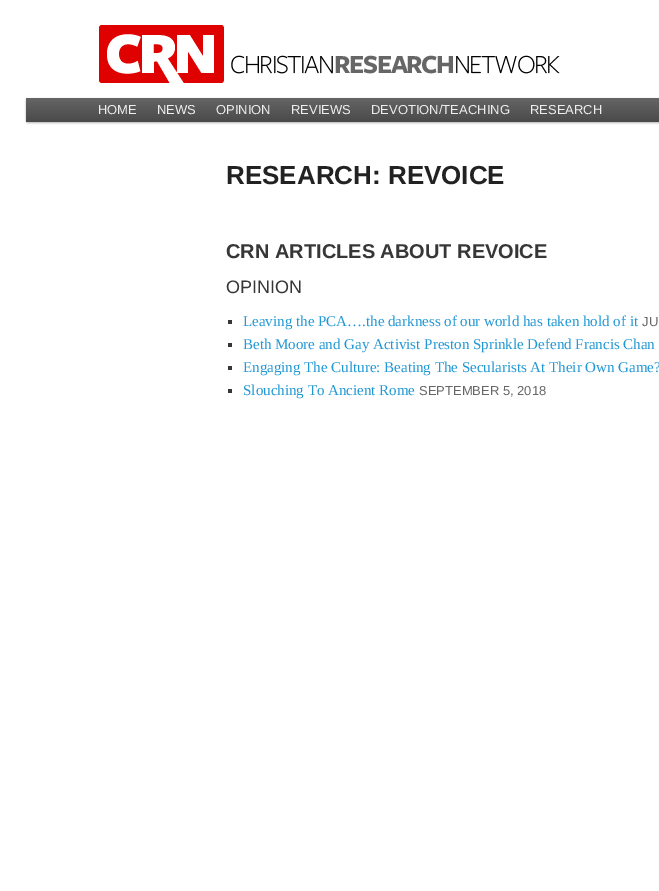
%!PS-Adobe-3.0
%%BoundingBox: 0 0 659 891
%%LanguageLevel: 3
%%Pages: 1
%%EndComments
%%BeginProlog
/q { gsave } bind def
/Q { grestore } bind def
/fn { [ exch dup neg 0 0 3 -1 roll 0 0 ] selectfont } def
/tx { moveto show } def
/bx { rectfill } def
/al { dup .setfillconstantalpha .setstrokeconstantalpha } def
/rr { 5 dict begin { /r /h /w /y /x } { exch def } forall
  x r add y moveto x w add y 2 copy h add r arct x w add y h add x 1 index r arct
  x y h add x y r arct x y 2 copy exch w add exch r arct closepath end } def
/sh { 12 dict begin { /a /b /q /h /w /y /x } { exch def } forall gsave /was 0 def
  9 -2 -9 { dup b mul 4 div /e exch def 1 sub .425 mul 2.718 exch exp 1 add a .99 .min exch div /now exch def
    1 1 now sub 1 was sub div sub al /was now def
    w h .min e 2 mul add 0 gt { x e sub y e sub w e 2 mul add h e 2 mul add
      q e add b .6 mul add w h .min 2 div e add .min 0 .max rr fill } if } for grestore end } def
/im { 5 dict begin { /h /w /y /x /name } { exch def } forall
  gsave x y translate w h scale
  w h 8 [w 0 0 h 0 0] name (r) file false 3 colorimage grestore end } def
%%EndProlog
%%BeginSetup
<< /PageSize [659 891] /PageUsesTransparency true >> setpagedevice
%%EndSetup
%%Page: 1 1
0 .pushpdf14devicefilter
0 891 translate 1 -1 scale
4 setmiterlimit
1 setgray
0 0 659 891 bx
(image0.raw) 99 25 461 58 im
0 setgray
26 99 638 24 2 1 0.3 sh
q 26 98 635 24 2 rr clip newpath
<< /ShadingType 2 /ColorSpace /DeviceRGB /Coords [506 98 506 122] /Extend [true true] /Function << /FunctionType 2 /Domain [0 1] /C0 [0.396 0.396 0.396] /C1 [0.29 0.29 0.29] /N 1 >> >> shfill Q
/LiberationSans-Regular 13 fn
0.933 setgray
(HOME) 98 114 tx
(NEWS) 157 114 tx
(OPINION) 216 114 tx
(REVIEWS) 291 114 tx
(DEVOTION/TEACHING) 371 114 tx
(RESEARCH) 530 114 tx
/LiberationSans-Bold 26 fn
0.133 setgray
(RESEARCH: REVOICE) 226 184 tx
/LiberationSans-Bold 20 fn
0.216 setgray
(CRN ARTICLES ABOUT REVOICE) 226 258 tx
/LiberationSans-Regular 18 fn
(OPINION) 226 293 tx
228 320 4 4 bx
/LiberationSerif-Regular 15 fn
0.129 0.596 0.831 setrgbcolor
(Leaving the PCA….the darkness of our world has taken hold of it) 243 326 tx
/LiberationSans-Regular 13 fn
0.4 setgray
(JU) 642 326 tx
0.216 setgray
228 343 4 4 bx
/LiberationSerif-Regular 15 fn
0.129 0.596 0.831 setrgbcolor
(Beth Moore and Gay Activist Preston Sprinkle Defend Francis Chan) 243 349 tx
0.216 setgray
228 366 4 4 bx
0.129 0.596 0.831 setrgbcolor
(Engaging The Culture: Beating The Secularists At Their Own Game?) 243 372 tx
0.216 setgray
228 389 4 4 bx
0.129 0.596 0.831 setrgbcolor
(Slouching To Ancient Rome) 243 395 tx
/LiberationSans-Regular 13 fn
0.4 setgray
(SEPTEMBER 5, 2018) 419 395 tx
.poppdf14devicefilter showpage
%%EOF
